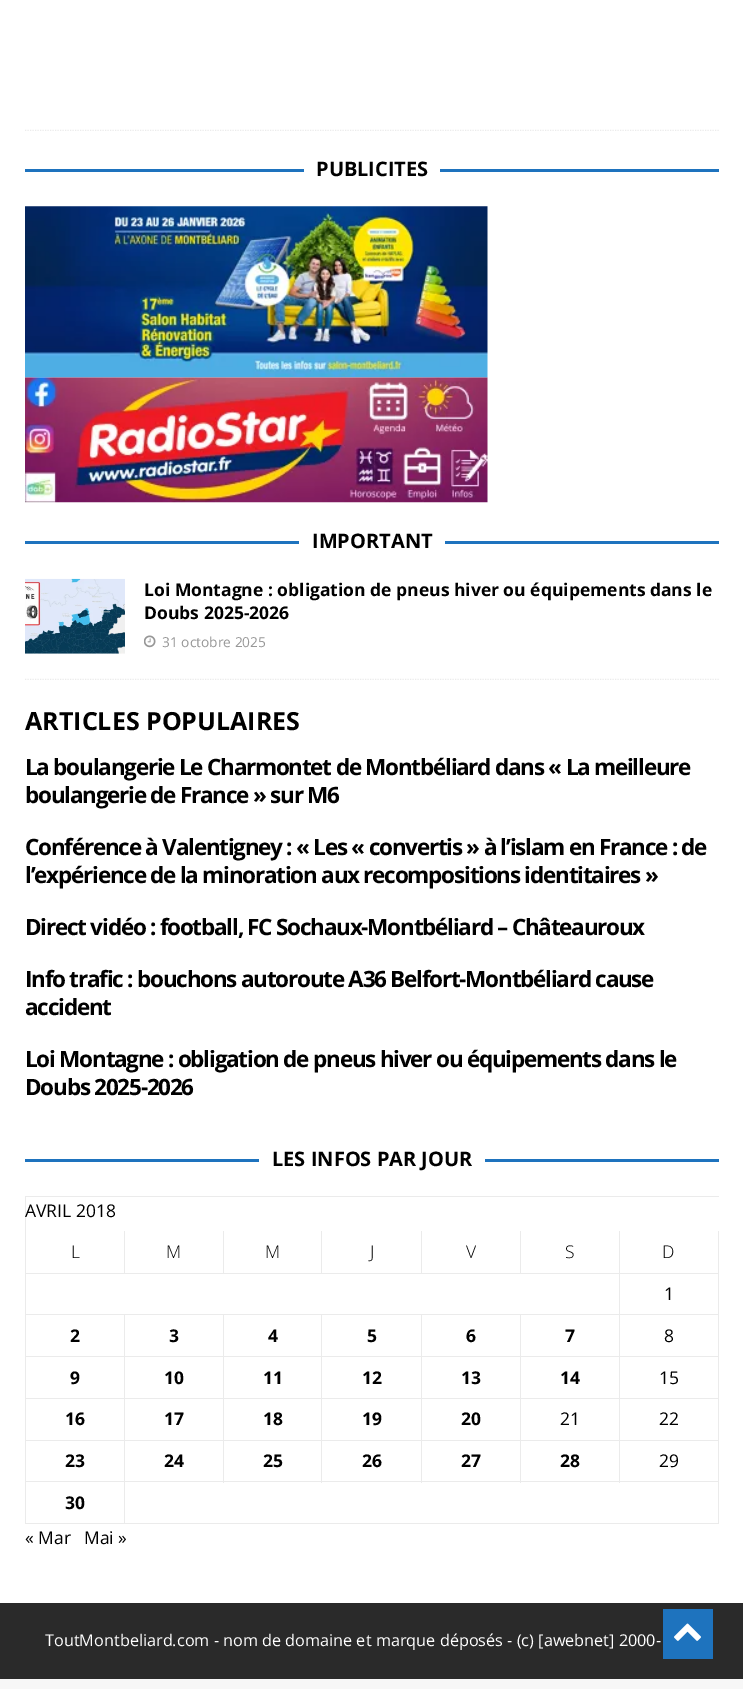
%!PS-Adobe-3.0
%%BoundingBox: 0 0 743 1689
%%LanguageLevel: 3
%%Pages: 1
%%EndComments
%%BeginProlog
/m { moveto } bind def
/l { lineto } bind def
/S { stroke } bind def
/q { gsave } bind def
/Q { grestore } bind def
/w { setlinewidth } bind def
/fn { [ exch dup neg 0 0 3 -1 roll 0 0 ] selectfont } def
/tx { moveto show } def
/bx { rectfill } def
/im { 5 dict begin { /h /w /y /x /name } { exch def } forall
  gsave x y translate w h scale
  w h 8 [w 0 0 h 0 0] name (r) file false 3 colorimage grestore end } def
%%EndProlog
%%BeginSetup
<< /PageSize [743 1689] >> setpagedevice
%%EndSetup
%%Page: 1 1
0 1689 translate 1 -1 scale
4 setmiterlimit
0.969 setgray
0 0 743 1689 bx
1 setgray
0 0 743 1603 bx
q
25 0 694 131 rectclip
0.922 setgray
1.2 w
[1.25 1.25] 0 setdash
25 130.5 m 719 130.5 l S
Q
0.118 0.451 0.745 setrgbcolor
25 169 694 3 bx
1 setgray
304 169 136 3 bx
/OpenSans-Bold 20 fn
0 setgray
(PUBLICITES) 316 176 tx
(image0.raw) 25 206 463 172 im
(image1.raw) 25 377 463 126 im
0.118 0.451 0.745 setrgbcolor
25 541 694 3 bx
1 setgray
299 541 146 3 bx
0 setgray
(IMPORTANT) 312 548 tx
q
25 528 694 152 rectclip
0.922 setgray
1.2 w
[1.25 1.25] 0 setdash
25 679.5 m 719 679.5 l S
Q
(image2.raw) 25 578 100 76 im
/OpenSans-Bold 17.5 fn
(Loi Montagne : obligation de pneus hiver ou équipements dans le) 144 596 tx
(Doubs 2025-2026) 144 619 tx
(image3.raw) 144 635 12 13 im
/OpenSans-Regular 13.75 fn
0.592 setgray
(31 octobre 2025) 162 647 tx
/OpenSans-Bold 25 fn
0 setgray
(ARTICLES POPULAIRES) 25 730 tx
/OpenSans-Bold 22.5 fn
25 775 m -1.25 0 (La boulangerie Le Charmontet de Montbéliard dans « La meilleure) ashow
25 803 m -1.25 0 (boulangerie de France » sur M6) ashow
25 855 m -1.25 0 (Conférence à Valentigney : « Les « convertis » à l’islam en France : de) ashow
25 883 m -1.25 0 (l’expérience de la minoration aux recompositions identitaires ») ashow
25 935 m -1.25 0 (Direct vidéo : football, FC Sochaux-Montbéliard – Châteauroux) ashow
25 987 m -1.25 0 (Info trafic : bouchons autoroute A36 Belfort-Montbéliard cause) ashow
25 1015 m -1.25 0 (accident) ashow
25 1067 m -1.25 0 (Loi Montagne : obligation de pneus hiver ou équipements dans le) ashow
25 1095 m -1.25 0 (Doubs 2025-2026) ashow
0.118 0.451 0.745 setrgbcolor
25 1159 694 3 bx
1 setgray
259 1159 226 3 bx
/OpenSans-Bold 20 fn
0 setgray
(LES INFOS PAR JOUR) 272 1166 tx
0.922 setgray
25 1196 694 1 bx
25 1196 1 328 bx
/OpenSans-Regular 17.5 fn
0 setgray
(AVRIL 2018) 25 1217 tx
0.922 setgray
718 1231 1 293 bx
619 1481 100 1 bx
619 1440 1 43 bx
619 1440 100 1 bx
619 1398 1 43 bx
619 1398 100 1 bx
619 1356 1 43 bx
619 1356 100 1 bx
619 1314 1 44 bx
619 1314 100 1 bx
619 1273 1 42 bx
619 1273 100 1 bx
619 1231 1 43 bx
520 1273 100 1 bx
520 1231 1 43 bx
421 1273 100 1 bx
421 1231 1 43 bx
321 1273 102 1 bx
321 1231 1 43 bx
223 1273 100 1 bx
223 1231 1 43 bx
124 1273 100 1 bx
124 1231 1 43 bx
25 1273 100 1 bx
/OpenSans-Light 17.5 fn
0 setgray
(L) 71 1258 tx
(M) 166 1258 tx
(M) 265 1258 tx
(J) 370 1258 tx
(V) 466 1258 tx
(S) 565 1258 tx
(D) 662 1258 tx
0.922 setgray
520 1481 100 1 bx
520 1440 1 43 bx
520 1440 100 1 bx
520 1398 1 43 bx
520 1398 100 1 bx
520 1356 1 43 bx
520 1356 100 1 bx
520 1314 1 44 bx
421 1481 100 1 bx
421 1440 1 43 bx
421 1440 100 1 bx
421 1398 1 43 bx
421 1398 100 1 bx
421 1356 1 43 bx
421 1356 100 1 bx
421 1314 1 44 bx
321 1481 102 1 bx
321 1440 1 43 bx
321 1440 102 1 bx
321 1398 1 43 bx
321 1398 102 1 bx
321 1356 1 43 bx
321 1356 102 1 bx
321 1314 1 44 bx
223 1481 100 1 bx
223 1440 1 43 bx
223 1440 100 1 bx
223 1398 1 43 bx
223 1398 100 1 bx
223 1356 1 43 bx
223 1356 100 1 bx
223 1314 1 44 bx
124 1523 595 1 bx
124 1481 1 43 bx
124 1481 100 1 bx
124 1440 1 43 bx
124 1440 100 1 bx
124 1398 1 43 bx
124 1398 100 1 bx
124 1356 1 43 bx
124 1356 100 1 bx
124 1314 1 44 bx
25 1314 595 1 bx
/OpenSans-Regular 17.5 fn
0 setgray
(1) 664 1300 tx
0.922 setgray
25 1356 100 1 bx
/OpenSans-Bold 17.5 fn
0 setgray
(2) 70 1342 tx
(3) 169 1342 tx
(4) 268 1342 tx
(5) 367 1342 tx
(6) 466 1342 tx
(7) 565 1342 tx
/OpenSans-Regular 17.5 fn
(8) 664 1342 tx
0.922 setgray
25 1398 100 1 bx
/OpenSans-Bold 17.5 fn
0 setgray
(9) 70 1384 tx
(10) 164 1384 tx
(11) 263 1384 tx
(12) 362 1384 tx
(13) 461 1384 tx
(14) 560 1384 tx
/OpenSans-Regular 17.5 fn
(15) 659 1384 tx
0.922 setgray
25 1440 100 1 bx
/OpenSans-Bold 17.5 fn
0 setgray
(16) 65 1425 tx
(17) 164 1425 tx
(18) 263 1425 tx
(19) 362 1425 tx
(20) 461 1425 tx
/OpenSans-Regular 17.5 fn
(21) 560 1425 tx
(22) 659 1425 tx
0.922 setgray
25 1481 100 1 bx
/OpenSans-Bold 17.5 fn
0 setgray
(23) 65 1467 tx
(24) 164 1467 tx
(25) 263 1467 tx
(26) 362 1467 tx
(27) 461 1467 tx
(28) 560 1467 tx
/OpenSans-Regular 17.5 fn
(29) 659 1467 tx
0.922 setgray
25 1523 100 1 bx
/OpenSans-Bold 17.5 fn
0 setgray
(30) 65 1509 tx
/OpenSans-Regular 17.5 fn
(« Mar) 25 1544 tx
(Mai ») 84 1544 tx
0.165 setgray
0 1603 743 76 bx
/OpenSans-Regular 16.25 fn
1 setgray
(ToutMontbeliard.com - nom de domaine et marque déposés - \(c\) [awebnet] 2000-) 45 1646 tx
0.118 0.451 0.745 setrgbcolor
663 1609 50 50 bx
(image4.raw) 674 1623 27 18 im
showpage
%%EOF
